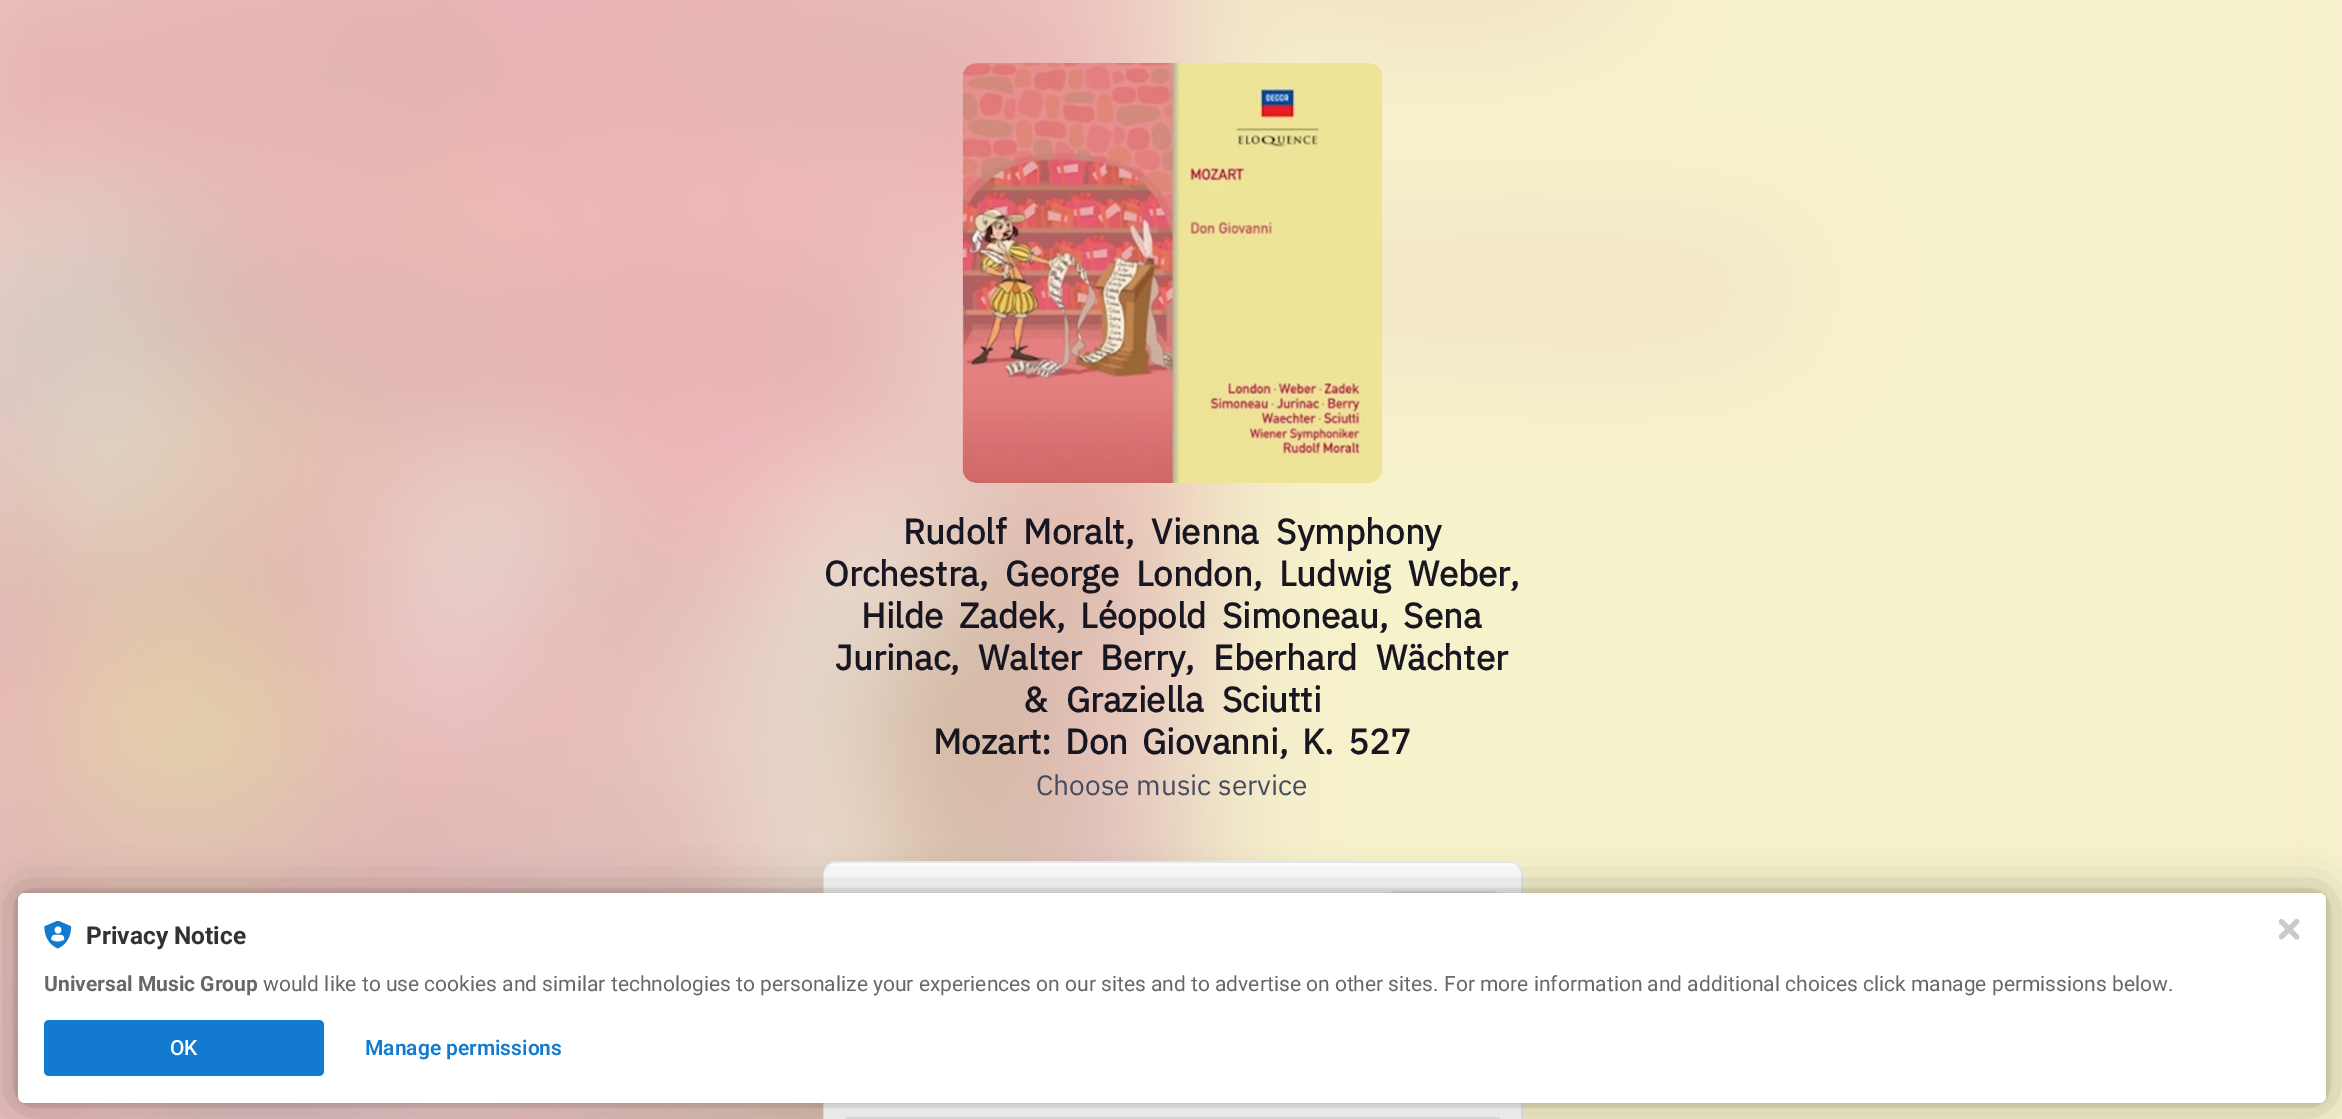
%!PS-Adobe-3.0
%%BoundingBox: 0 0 2342 1119
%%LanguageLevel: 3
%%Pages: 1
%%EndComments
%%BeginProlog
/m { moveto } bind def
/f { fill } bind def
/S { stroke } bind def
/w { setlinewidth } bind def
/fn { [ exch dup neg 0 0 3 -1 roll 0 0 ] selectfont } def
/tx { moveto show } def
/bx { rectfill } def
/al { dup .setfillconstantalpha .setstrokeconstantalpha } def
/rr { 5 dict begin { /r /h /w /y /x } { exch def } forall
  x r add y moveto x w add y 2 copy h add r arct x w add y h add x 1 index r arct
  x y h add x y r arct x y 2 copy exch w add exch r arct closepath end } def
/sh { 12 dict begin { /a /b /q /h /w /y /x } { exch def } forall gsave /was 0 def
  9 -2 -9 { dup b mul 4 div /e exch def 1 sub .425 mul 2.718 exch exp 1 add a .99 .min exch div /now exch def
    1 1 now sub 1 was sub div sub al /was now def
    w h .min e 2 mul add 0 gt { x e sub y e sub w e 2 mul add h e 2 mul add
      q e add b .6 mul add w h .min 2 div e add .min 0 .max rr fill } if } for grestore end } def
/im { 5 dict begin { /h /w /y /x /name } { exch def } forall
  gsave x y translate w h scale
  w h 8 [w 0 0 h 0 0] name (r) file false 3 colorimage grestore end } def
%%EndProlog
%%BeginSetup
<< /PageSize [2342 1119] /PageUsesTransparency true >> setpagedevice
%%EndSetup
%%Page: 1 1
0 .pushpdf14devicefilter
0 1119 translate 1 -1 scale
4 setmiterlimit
1 setgray
0 0 2342 1119 bx
(image0.raw) 0 0 2342 1119 im
(image1.raw) 962 63 421 420 im
/IBMPlexSans-Bold 35 fn
0.094 0.09 0.129 setrgbcolor
903 544 m 9 0 32 (Rudolf Moralt, Vienna Symphony) widthshow
824 586 m 8.5 0 32 (Orchestra, George London, Ludwig Weber,) widthshow
861 628 m 7 0 32 (Hilde Zadek, Léopold Simoneau, Sena) widthshow
835 670 m 10 0 32 (Jurinac, Walter Berry, Eberhard Wächter) widthshow
1023 712 m 10 0 32 (& Graziella Sciutti) widthshow
933 754 m 5.5 0 32 (Mozart: Don Giovanni, K. 527) widthshow
/IBMPlexSans-Regular 28 fn
0.271 0.294 0.373 setrgbcolor
(Choose music service) 1036 795 tx
0.902 0.918 0.949 setrgbcolor
2 w
824 862 698 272 13 rr S
1 setgray
824 863 697 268 12 rr f
0.902 0.918 0.949 setrgbcolor
1388 891 112 70 7 rr f
845 1117 655 2 bx
0 setgray
18 893 2308 210 7 3.5 0.12 sh
18 893 2308 210 7 21 0.3 sh
1 setgray
18 893 2308 210 7 rr f
(image2.raw) 44 921 28 28 im
/Roboto-Bold 24.5 fn
0.196 setgray
(Privacy Notice) 86 944 tx
/Roboto-Bold 21 fn
0.408 setgray
(Universal Music Group) 44 991 tx
/Roboto-Regular 21 fn
(would like to use cookies and similar technologies to personalize your experiences on our sites and to advertise on other sites. For more information and additional choices click manage permissions below.) 263 991 tx
0.075 0.482 0.812 setrgbcolor
44 1020 280 56 5 rr f
/Roboto-Medium 21 fn
1 setgray
(OK) 170 1055 tx
/Roboto-SemiBold 21 fn
0.075 0.482 0.812 setrgbcolor
(Manage permissions) 365 1055 tx
(image3.raw) 2279 919 21 21 im
.poppdf14devicefilter showpage
%%EOF
